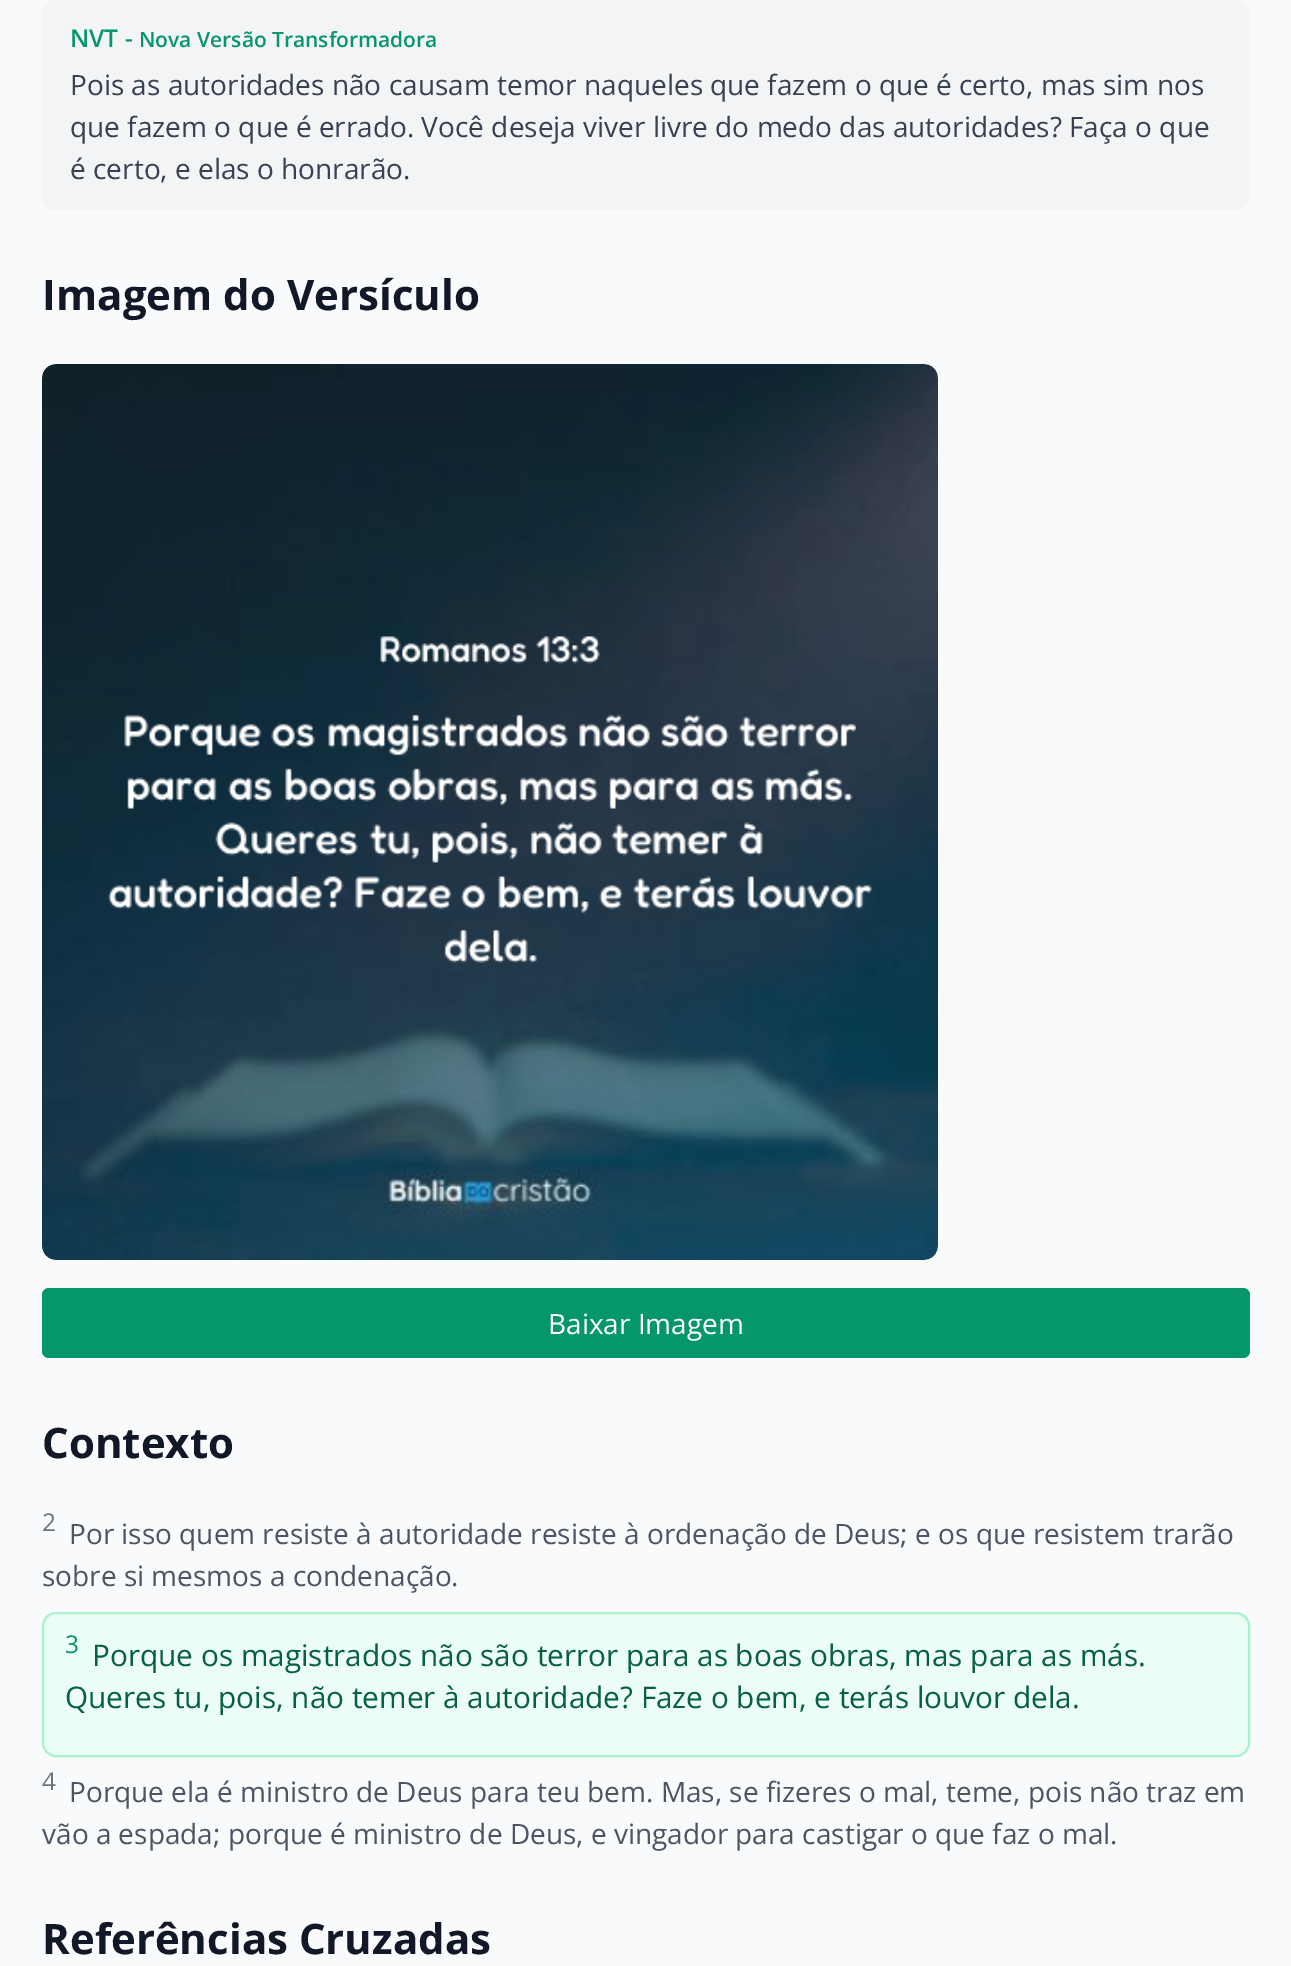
%!PS-Adobe-3.0
%%BoundingBox: 0 0 1291 1966
%%LanguageLevel: 3
%%Pages: 1
%%EndComments
%%BeginProlog
/f { fill } bind def
/S { stroke } bind def
/q { gsave } bind def
/Q { grestore } bind def
/w { setlinewidth } bind def
/fn { [ exch dup neg 0 0 3 -1 roll 0 0 ] selectfont } def
/tx { moveto show } def
/bx { rectfill } def
/rr { 5 dict begin { /r /h /w /y /x } { exch def } forall
  x r add y moveto x w add y 2 copy h add r arct x w add y h add x 1 index r arct
  x y h add x y r arct x y 2 copy exch w add exch r arct closepath end } def
/im { 5 dict begin { /h /w /y /x /name } { exch def } forall
  gsave x y translate w h scale
  w h 8 [w 0 0 h 0 0] name (r) file false 3 colorimage grestore end } def
%%EndProlog
%%BeginSetup
<< /PageSize [1291 1966] >> setpagedevice
%%EndSetup
%%Page: 1 1
0 1966 translate 1 -1 scale
4 setmiterlimit
0.976 0.98 0.984 setrgbcolor
0 0 1291 1966 bx
0.953 0.957 0.965 setrgbcolor
42 0 1208 210 14 rr f
/OpenSans-SemiBold 24.5 fn
0.02 0.588 0.412 setrgbcolor
(NVT -) 70 47 tx
/OpenSans-SemiBold 21 fn
(Nova Versão Transformadora) 139 47 tx
/OpenSans-Regular 28 fn
0.216 0.255 0.318 setrgbcolor
(Pois as autoridades não causam temor naqueles que fazem o que é certo, mas sim nos) 70 95 tx
(que fazem o que é errado. Você deseja viver livre do medo das autoridades? Faça o que) 70 137 tx
(é certo, e elas o honrarão.) 70 179 tx
/OpenSans-Bold 42 fn
0.067 0.094 0.153 setrgbcolor
(Imagem do Versículo) 42 310 tx
0.898 0.906 0.922 setrgbcolor
42 364 896 896 14 rr f
(image0.raw) 42 364 896 896 im
0.02 0.588 0.412 setrgbcolor
42 1288 1208 70 7 rr f
/OpenSans-Regular 28 fn
1 setgray
(Baixar Imagem) 548 1334 tx
/OpenSans-Bold 42 fn
0.067 0.094 0.153 setrgbcolor
(Contexto) 42 1458 tx
/OpenSans-Regular 24.5 fn
0.42 0.447 0.502 setrgbcolor
(2) 42 1531 tx
/OpenSans-Regular 28 fn
0.294 0.333 0.388 setrgbcolor
(Por isso quem resiste à autoridade resiste à ordenação de Deus; e os que resistem trarão) 69 1544 tx
(sobre si mesmos a condenação.) 42 1586 tx
0.925 0.992 0.961 setrgbcolor
43 1613 1206 143 13 rr q f Q
0.655 0.953 0.816 setrgbcolor
2 w
S
/OpenSans-Regular 24.5 fn
0.02 0.588 0.412 setrgbcolor
(3) 65 1653 tx
/OpenSans-Regular 29.75 fn
0.024 0.373 0.275 setrgbcolor
(Porque os magistrados não são terror para as boas obras, mas para as más.) 92 1666 tx
(Queres tu, pois, não temer à autoridade? Faze o bem, e terás louvor dela.) 65 1708 tx
/OpenSans-Regular 24.5 fn
0.42 0.447 0.502 setrgbcolor
(4) 42 1790 tx
/OpenSans-Regular 28 fn
0.294 0.333 0.388 setrgbcolor
(Porque ela é ministro de Deus para teu bem. Mas, se fizeres o mal, teme, pois não traz em) 69 1802 tx
(vão a espada; porque é ministro de Deus, e vingador para castigar o que faz o mal.) 42 1844 tx
/OpenSans-Bold 42 fn
0.067 0.094 0.153 setrgbcolor
(Referências Cruzadas) 42 1954 tx
showpage
%%EOF
